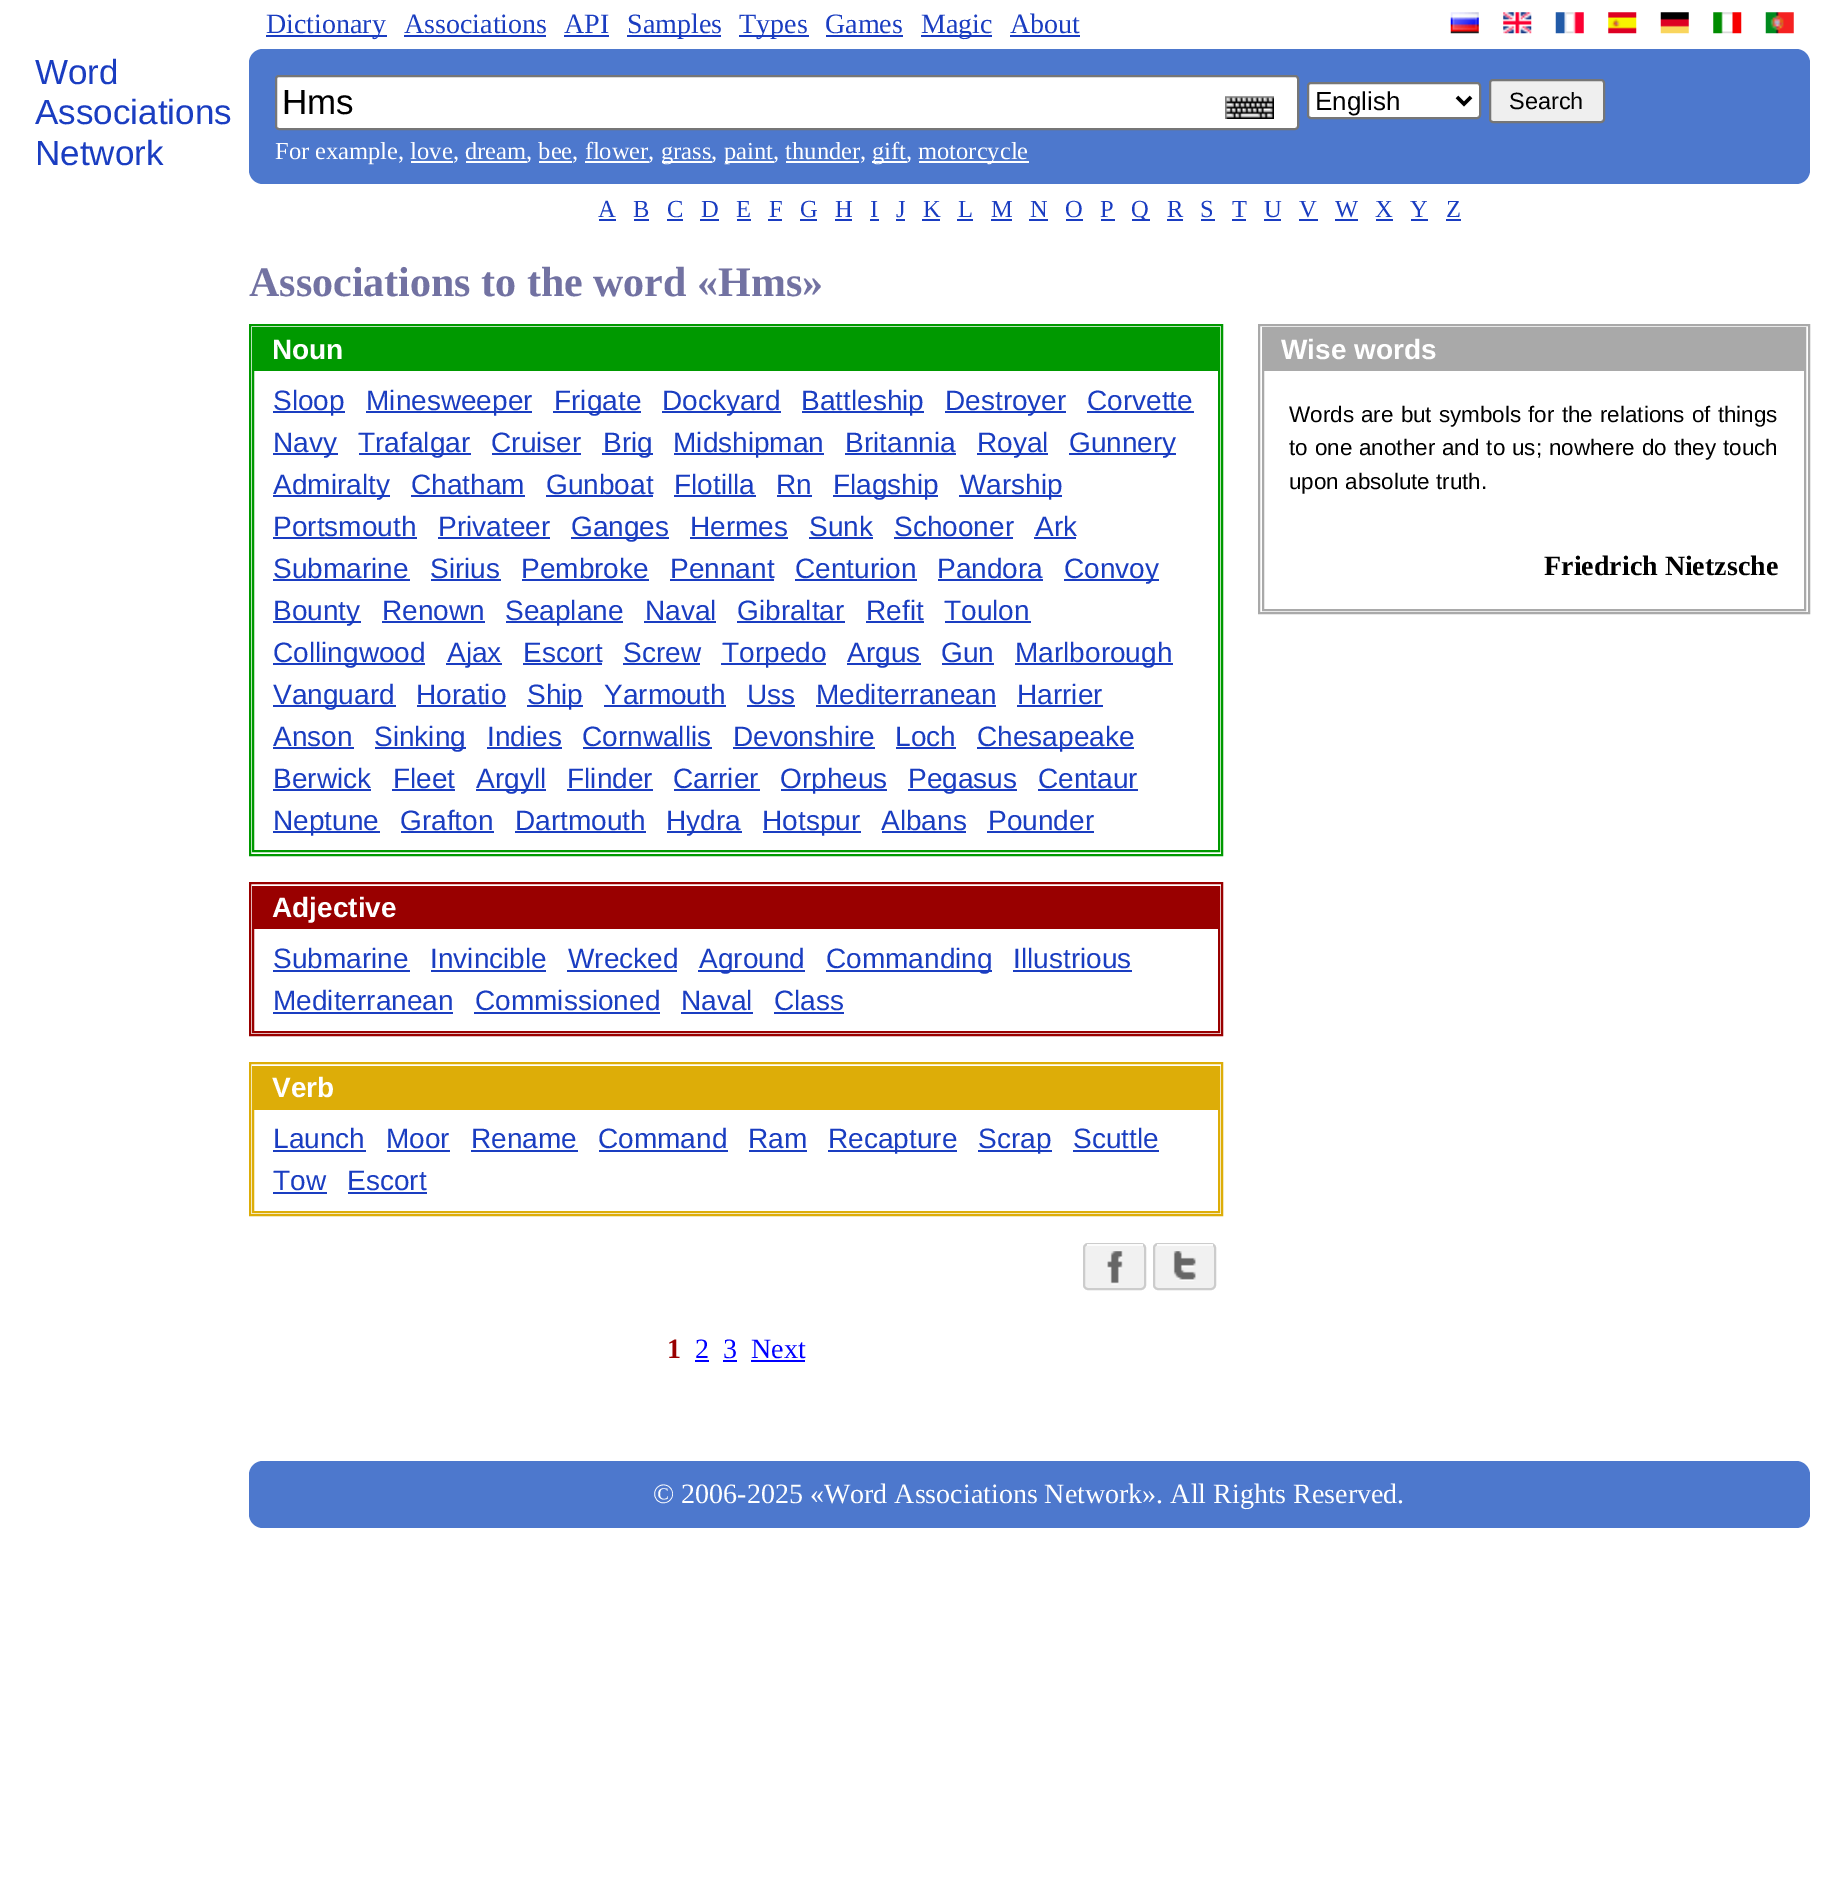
%!PS-Adobe-3.0
%%BoundingBox: 0 0 1844 1903
%%LanguageLevel: 3
%%Pages: 1
%%EndComments
%%BeginProlog
/m { moveto } bind def
/l { lineto } bind def
/f { fill } bind def
/S { stroke } bind def
/q { gsave } bind def
/Q { grestore } bind def
/w { setlinewidth } bind def
/fn { [ exch dup neg 0 0 3 -1 roll 0 0 ] selectfont } def
/tx { moveto show } def
/bx { rectfill } def
/rr { 5 dict begin { /r /h /w /y /x } { exch def } forall
  x r add y moveto x w add y 2 copy h add r arct x w add y h add x 1 index r arct
  x y h add x y r arct x y 2 copy exch w add exch r arct closepath end } def
/im { 5 dict begin { /h /w /y /x /name } { exch def } forall
  gsave x y translate w h scale
  w h 8 [w 0 0 h 0 0] name (r) file false 3 colorimage grestore end } def
%%EndProlog
%%BeginSetup
<< /PageSize [1844 1903] >> setpagedevice
%%EndSetup
%%Page: 1 1
0 1903 translate 1 -1 scale
4 setmiterlimit
1 setgray
0 0 1844 1903 bx
/LiberationSans-Regular 35 fn
0.102 0.239 0.757 setrgbcolor
(Word) 35 84 tx
(Associations) 35 124 tx
(Network) 35 165 tx
266 35 121 2 bx
/LiberationSerif-Regular 28 fn
(Dictionary) 266 33 tx
(Associations) 404 33 tx
404 35 142 2 bx
(API) 564 33 tx
564 35 45 2 bx
627 35 94 2 bx
(Samples) 627 33 tx
739 35 70 2 bx
(Types) 739 33 tx
(Games) 825 33 tx
826 35 77 2 bx
921 35 71 2 bx
(Magic) 921 33 tx
(About) 1010 33 tx
1010 35 70 2 bx
(image0.raw) 1450 12 29 22 im
(image1.raw) 1503 12 29 22 im
(image2.raw) 1555 12 29 22 im
(image3.raw) 1608 12 29 22 im
(image4.raw) 1660 12 29 22 im
(image5.raw) 1713 12 29 22 im
(image6.raw) 1765 12 29 22 im
0.302 0.471 0.804 setrgbcolor
249 49 1561 135 14 rr f
1 setgray
276 76 1022 53 3 rr q f Q
0.463 setgray
2 w
S
/LiberationSans-Regular 35 fn
0 setgray
(Hms) 282 114 tx
(image7.raw) 1225 96 49 23 im
1 setgray
1308 83 172 35 3 rr q f Q
0.463 setgray
S
0 setgray
3.5 w
1457 97 m 1464 104 l 1471 97 l S
/LiberationSans-Regular 26 fn
(English) 1315 110 tx
0.937 setgray
1490 80 114 42 3 rr q f Q
0.463 setgray
2 w
S
/LiberationSans-Regular 23.5 fn
0 setgray
(Search) 1509 109 tx
/LiberationSerif-Regular 24.5 fn
1 setgray
(For example, love, dream, bee, flower,) 275 159 tx
662 161 50 2 bx
(grass,) 661 159 tx
725 161 49 2 bx
(paint, thunder,) 724 159 tx
872 161 35 2 bx
(gift,) 872 159 tx
919 161 110 2 bx
(motorcycle) 918 159 tx
411 161 42 2 bx
466 161 61 2 bx
539 161 33 2 bx
585 161 64 2 bx
786 161 73 2 bx
0.102 0.239 0.757 setrgbcolor
(A) 598 217 tx
599 219 17 2 bx
(B) 633 217 tx
634 219 15 2 bx
(C) 667 217 tx
667 219 16 2 bx
(D) 701 217 tx
700 219 19 2 bx
(E) 736 217 tx
737 219 14 2 bx
(F) 769 217 tx
768 219 14 2 bx
(G) 800 217 tx
800 219 17 2 bx
(H) 835 217 tx
835 219 17 2 bx
(I) 870 217 tx
870 219 9 2 bx
(J) 896 217 tx
896 219 9 2 bx
(K) 923 217 tx
922 219 18 2 bx
(L) 958 217 tx
957 219 16 2 bx
(M) 991 217 tx
991 219 21 2 bx
(N) 1030 217 tx
1029 219 19 2 bx
(O) 1065 217 tx
1066 219 17 2 bx
(P) 1100 217 tx
1101 219 14 2 bx
1132 219 18 2 bx
(Q) 1131 217 tx
(R) 1167 217 tx
1167 219 16 2 bx
(S) 1200 217 tx
1201 219 14 2 bx
(T) 1232 217 tx
1232 219 14 2 bx
(U) 1264 217 tx
1264 219 17 2 bx
(V) 1299 217 tx
1299 219 19 2 bx
(W) 1335 217 tx
1335 219 23 2 bx
(X) 1375 217 tx
1376 219 17 2 bx
(Y) 1410 217 tx
1411 219 17 2 bx
(Z) 1446 217 tx
1446 219 15 2 bx
/LiberationSerif-Bold 42 fn
0.447 0.447 0.635 setrgbcolor
(Associations to the word «Hms») 249 296 tx
0 0.6 0 setrgbcolor
250 325 972 530 rectstroke
253 328 966 523 rectstroke
254 329 964 42 bx
/LiberationSans-Bold 28 fn
1 setgray
(Noun) 272 359 tx
0.102 0.239 0.757 setrgbcolor
273 411 72 2 bx
/LiberationSans-Regular 28 fn
(Sloop) 273 410 tx
366 411 166 2 bx
(Minesweeper) 366 410 tx
553 411 88 2 bx
(Frigate) 554 410 tx
662 411 119 2 bx
(Dockyard) 662 410 tx
802 411 122 2 bx
(Battleship) 801 410 tx
945 411 121 2 bx
(Destroyer) 945 410 tx
(Corvette) 1087 410 tx
1087 411 107 2 bx
273 453 65 2 bx
(Navy) 273 452 tx
359 453 112 2 bx
(Trafalgar) 358 452 tx
(Cruiser) 491 452 tx
492 453 89 2 bx
602 453 51 2 bx
(Brig) 603 452 tx
674 453 150 2 bx
(Midshipman) 673 452 tx
(Britannia) 845 452 tx
845 453 111 2 bx
977 453 71 2 bx
(Royal) 977 452 tx
1069 453 107 2 bx
(Gunnery) 1069 452 tx
273 495 117 2 bx
(Admiralty) 273 494 tx
(Chatham) 411 494 tx
411 495 114 2 bx
(Gunboat) 546 494 tx
546 495 107 2 bx
(Flotilla) 674 494 tx
674 495 82 2 bx
(Rn) 776 494 tx
777 495 35 2 bx
833 495 105 2 bx
(Flagship) 833 494 tx
959 495 103 2 bx
(Warship) 960 494 tx
(Portsmouth) 273 536 tx
273 537 144 2 bx
(Privateer) 438 536 tx
438 537 112 2 bx
571 537 98 2 bx
(Ganges) 571 536 tx
(Hermes) 690 536 tx
690 537 98 2 bx
(Sunk) 809 536 tx
809 537 64 2 bx
(Schooner) 894 536 tx
894 537 119 2 bx
(Ark) 1035 536 tx
1034 537 42 2 bx
(Submarine) 273 578 tx
273 579 137 2 bx
(Sirius) 430 578 tx
431 579 70 2 bx
(Pembroke) 521 578 tx
522 579 127 2 bx
(Pennant) 670 578 tx
670 579 104 2 bx
(Centurion) 795 578 tx
795 579 122 2 bx
(Pandora) 937 578 tx
938 579 105 2 bx
1064 579 95 2 bx
(Convoy) 1064 578 tx
273 621 88 2 bx
(Bounty) 273 620 tx
(Renown) 382 620 tx
382 621 103 2 bx
506 621 117 2 bx
(Seaplane) 505 620 tx
(Naval) 645 620 tx
644 621 72 2 bx
(Gibraltar) 737 620 tx
737 621 108 2 bx
(Refit) 866 620 tx
866 621 58 2 bx
(Toulon) 944 620 tx
945 621 86 2 bx
273 663 152 2 bx
(Collingwood) 273 662 tx
446 663 56 2 bx
(Ajax) 447 662 tx
(Escort) 523 662 tx
523 663 79 2 bx
(Screw) 623 662 tx
623 663 77 2 bx
721 663 105 2 bx
(Torpedo) 722 662 tx
847 663 74 2 bx
(Argus) 847 662 tx
(Gun) 941 662 tx
942 663 52 2 bx
1015 663 158 2 bx
(Marlborough) 1015 662 tx
273 705 123 2 bx
(Vanguard) 273 704 tx
(Horatio) 416 704 tx
417 705 89 2 bx
527 705 56 2 bx
(Ship) 527 704 tx
(Yarmouth) 604 704 tx
604 705 122 2 bx
(Uss) 747 704 tx
747 705 48 2 bx
(Mediterranean) 816 704 tx
816 705 180 2 bx
(Harrier) 1017 704 tx
1017 705 86 2 bx
(Anson) 273 746 tx
273 747 81 2 bx
375 747 91 2 bx
(Sinking) 374 746 tx
(Indies) 487 746 tx
487 747 75 2 bx
(Cornwallis) 582 746 tx
583 747 129 2 bx
(Devonshire) 733 746 tx
733 747 142 2 bx
(Loch) 895 746 tx
896 747 60 2 bx
977 747 157 2 bx
(Chesapeake) 977 746 tx
(Berwick) 273 788 tx
273 789 98 2 bx
(Fleet) 393 788 tx
392 789 63 2 bx
476 789 70 2 bx
(Argyll) 476 788 tx
(Flinder) 567 788 tx
567 789 86 2 bx
(Carrier) 673 788 tx
674 789 86 2 bx
781 789 106 2 bx
(Orpheus) 780 788 tx
908 789 109 2 bx
(Pegasus) 908 788 tx
(Centaur) 1038 788 tx
1038 789 100 2 bx
273 831 107 2 bx
(Neptune) 273 830 tx
(Grafton) 400 830 tx
401 831 93 2 bx
(Dartmouth) 515 830 tx
515 831 131 2 bx
667 831 75 2 bx
(Hydra) 666 830 tx
763 831 98 2 bx
(Hotspur) 762 830 tx
(Albans) 881 830 tx
882 831 84 2 bx
(Pounder) 988 830 tx
987 831 107 2 bx
0.6 0 0 setrgbcolor
250 883 972 152 rectstroke
253 887 966 145 rectstroke
254 888 964 41 bx
/LiberationSans-Bold 28 fn
1 setgray
(Adjective) 272 917 tx
/LiberationSans-Regular 28 fn
0.102 0.239 0.757 setrgbcolor
(Submarine) 273 968 tx
273 970 137 2 bx
(Invincible) 430 968 tx
431 970 115 2 bx
(Wrecked) 568 968 tx
567 970 110 2 bx
698 970 107 2 bx
(Aground) 699 968 tx
826 970 166 2 bx
(Commanding) 826 968 tx
(Illustrious) 1013 968 tx
1013 970 119 2 bx
(Mediterranean) 273 1010 tx
273 1012 180 2 bx
(Commissioned) 475 1010 tx
474 1012 186 2 bx
(Naval) 681 1010 tx
681 1012 72 2 bx
(Class) 774 1010 tx
774 1012 70 2 bx
0.867 0.678 0.031 setrgbcolor
250 1063 972 152 rectstroke
253 1067 966 145 rectstroke
254 1068 964 42 bx
/LiberationSans-Bold 28 fn
1 setgray
(Verb) 272 1097 tx
/LiberationSans-Regular 28 fn
0.102 0.239 0.757 setrgbcolor
(Launch) 273 1148 tx
273 1150 93 2 bx
(Moor) 386 1148 tx
387 1150 63 2 bx
(Rename) 471 1148 tx
471 1150 107 2 bx
(Command) 598 1148 tx
599 1150 129 2 bx
(Ram) 748 1148 tx
749 1150 58 2 bx
828 1150 129 2 bx
(Recapture) 828 1148 tx
978 1150 74 2 bx
(Scrap) 978 1148 tx
(Scuttle) 1073 1148 tx
1073 1150 86 2 bx
(Tow) 273 1190 tx
273 1192 54 2 bx
(Escort) 347 1190 tx
348 1192 79 2 bx
0.945 setgray
1084 1244 61 45 4 rr q f Q
0.8 setgray
S
0.988 setgray
1087 1244 56 2 bx
(image8.raw) 1107 1251 16 34 im
0.945 setgray
1154 1244 61 45 4 rr q f Q
0.8 setgray
S
0.988 setgray
1157 1244 56 2 bx
(image9.raw) 1173 1251 23 30 im
/LiberationSerif-Bold 28 fn
0.6 0 0 setrgbcolor
(1) 667 1358 tx
/LiberationSerif-Regular 28 fn
0 0 1 setrgbcolor
(2) 695 1358 tx
695 1360 14 2 bx
(3) 723 1358 tx
723 1360 14 2 bx
(Next) 751 1358 tx
751 1360 54 2 bx
0.663 setgray
1259 325 550 288 rectstroke
1263 328 542 282 rectstroke
1264 329 540 42 bx
/LiberationSans-Bold 28 fn
1 setgray
(Wise words) 1281 359 tx
/LiberationSans-Regular 22.4 fn
0 setgray
1289 422 m 1 0 32 (Words are but symbols for the relations of things) widthshow
1289 455 m 1 0 32 (to one) widthshow
1359 455 m 0.75 0 32 (another and to us; nowhere do they touch) widthshow
(upon absolute truth.) 1289 489 tx
/LiberationSerif-Bold 28 fn
(Friedrich Nietzsche) 1544 575 tx
0.302 0.471 0.804 setrgbcolor
249 1461 1561 67 14 rr f
/LiberationSerif-Regular 28 fn
1 setgray
(© 2006-2025 «Word Associations Network». All Rights Reserved.) 653 1503 tx
showpage
%%EOF
